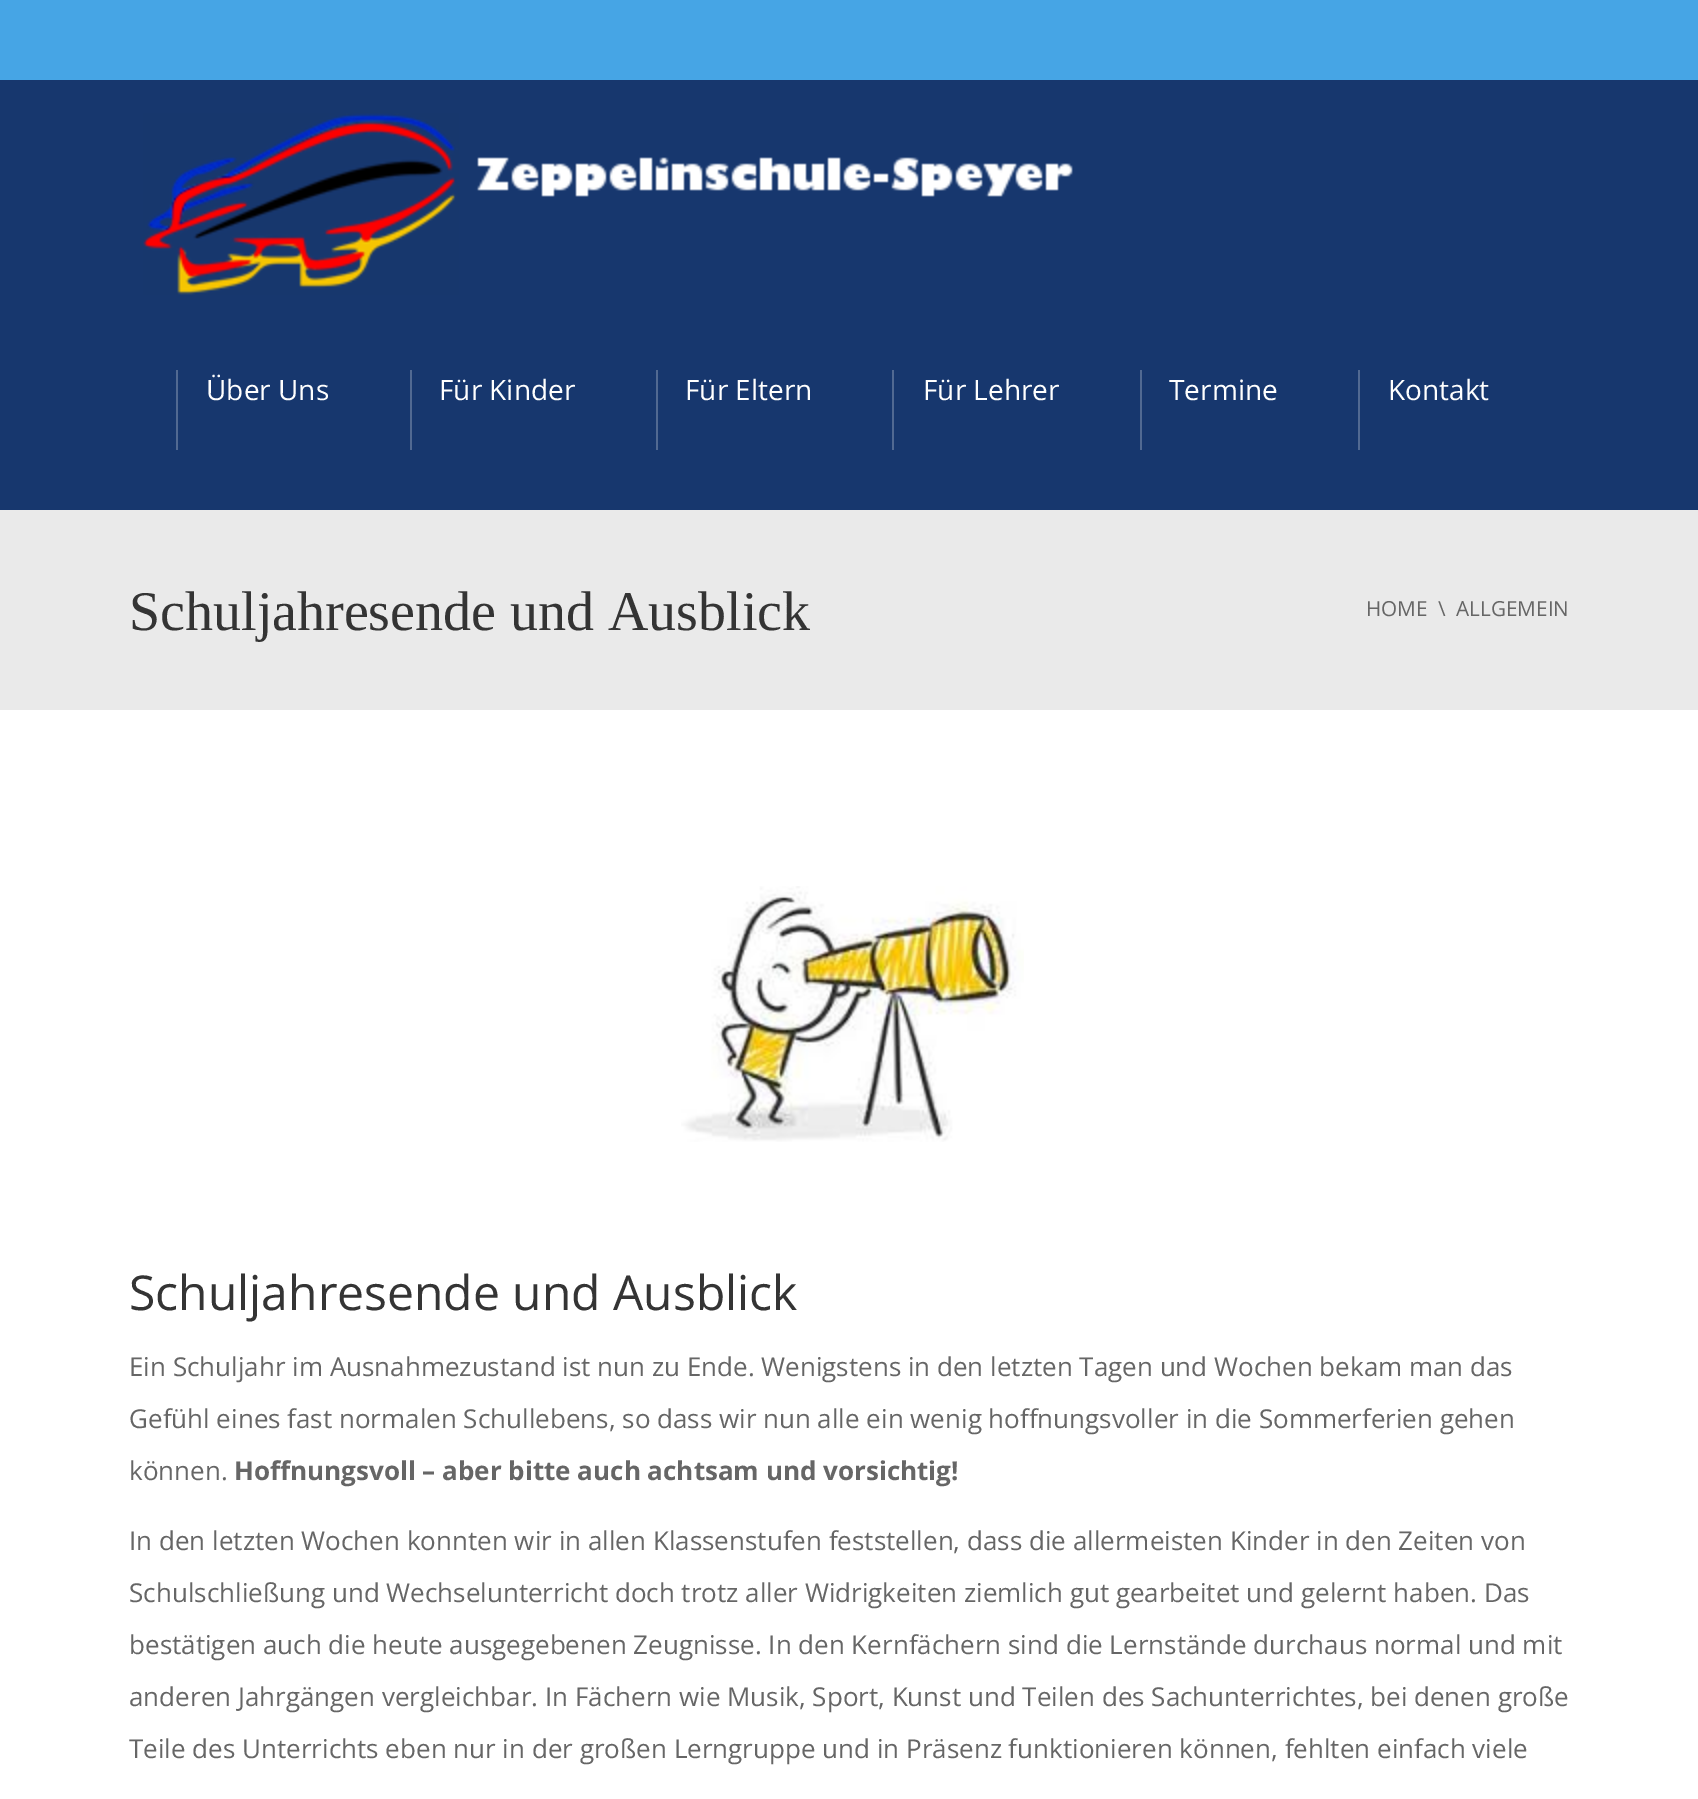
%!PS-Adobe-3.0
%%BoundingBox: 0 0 1698 1799
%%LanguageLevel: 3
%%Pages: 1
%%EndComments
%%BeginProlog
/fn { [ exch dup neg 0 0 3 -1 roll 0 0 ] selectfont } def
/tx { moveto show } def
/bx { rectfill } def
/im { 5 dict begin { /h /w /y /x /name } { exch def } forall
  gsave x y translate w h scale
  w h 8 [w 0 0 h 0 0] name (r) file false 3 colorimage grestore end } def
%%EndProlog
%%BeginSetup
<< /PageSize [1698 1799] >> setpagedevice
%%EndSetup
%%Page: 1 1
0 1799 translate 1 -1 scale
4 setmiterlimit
1 setgray
0 0 1698 1799 bx
0.275 0.647 0.898 setrgbcolor
0 0 1698 80 bx
0.09 0.216 0.431 setrgbcolor
0 80 1698 430 bx
(image0.raw) 143 113 930 182 im
0.318 0.412 0.573 setrgbcolor
176 370 2 80 bx
/OpenSans-Regular 28 fn
1 setgray
(Über Uns) 206 400 tx
0.318 0.412 0.573 setrgbcolor
410 370 2 80 bx
1 setgray
(Für Kinder) 439 400 tx
0.318 0.412 0.573 setrgbcolor
656 370 2 80 bx
1 setgray
(Für Eltern) 685 400 tx
0.318 0.412 0.573 setrgbcolor
892 370 2 80 bx
1 setgray
(Für Lehrer) 923 400 tx
0.318 0.412 0.573 setrgbcolor
1140 370 2 80 bx
1 setgray
(Termine) 1169 400 tx
0.318 0.412 0.573 setrgbcolor
1358 370 2 80 bx
1 setgray
(Kontakt) 1388 400 tx
0.918 setgray
0 510 1698 200 bx
/LiberationSerif-Regular 56 fn
0.204 setgray
(Schuljahresende und Ausblick) 129 630 tx
/OpenSans-Regular 20.75 fn
0.4 setgray
(HOME) 1366 616 tx
(\\) 1438 616 tx
(ALLGEMEIN) 1456 616 tx
(image1.raw) 681 886 343 256 im
/OpenSans-Regular 48 fn
0.204 setgray
(Schuljahresende und Ausblick) 129 1310 tx
/OpenSans-Regular 26 fn
0.4 setgray
(Ein Schuljahr im Ausnahmezustand ist nun zu Ende. Wenigstens in den letzten Tagen und Wochen bekam man das) 129 1376 tx
(Gefühl eines fast normalen Schullebens, so dass wir nun alle ein wenig hoffnungsvoller in die Sommerferien gehen) 129 1428 tx
(können.) 129 1480 tx
/OpenSans-Bold 26 fn
(Hoffnungsvoll – aber bitte auch achtsam und vorsichtig!) 234 1480 tx
/OpenSans-Regular 26 fn
(In den letzten Wochen konnten wir in allen Klassenstufen feststellen, dass die allermeisten Kinder in den Zeiten von) 129 1550 tx
(Schulschließung und Wechselunterricht doch trotz aller Widrigkeiten ziemlich gut gearbeitet und gelernt haben. Das) 129 1602 tx
(bestätigen auch die heute ausgegebenen Zeugnisse. In den Kernfächern sind die Lernstände durchaus normal und mit) 129 1654 tx
(anderen Jahrgängen vergleichbar. In Fächern wie Musik, Sport, Kunst und Teilen des Sachunterrichtes, bei denen große) 129 1706 tx
(Teile des Unterrichts eben nur in der großen Lerngruppe und in Präsenz funktionieren können, fehlten einfach viele) 129 1758 tx
showpage
%%EOF
